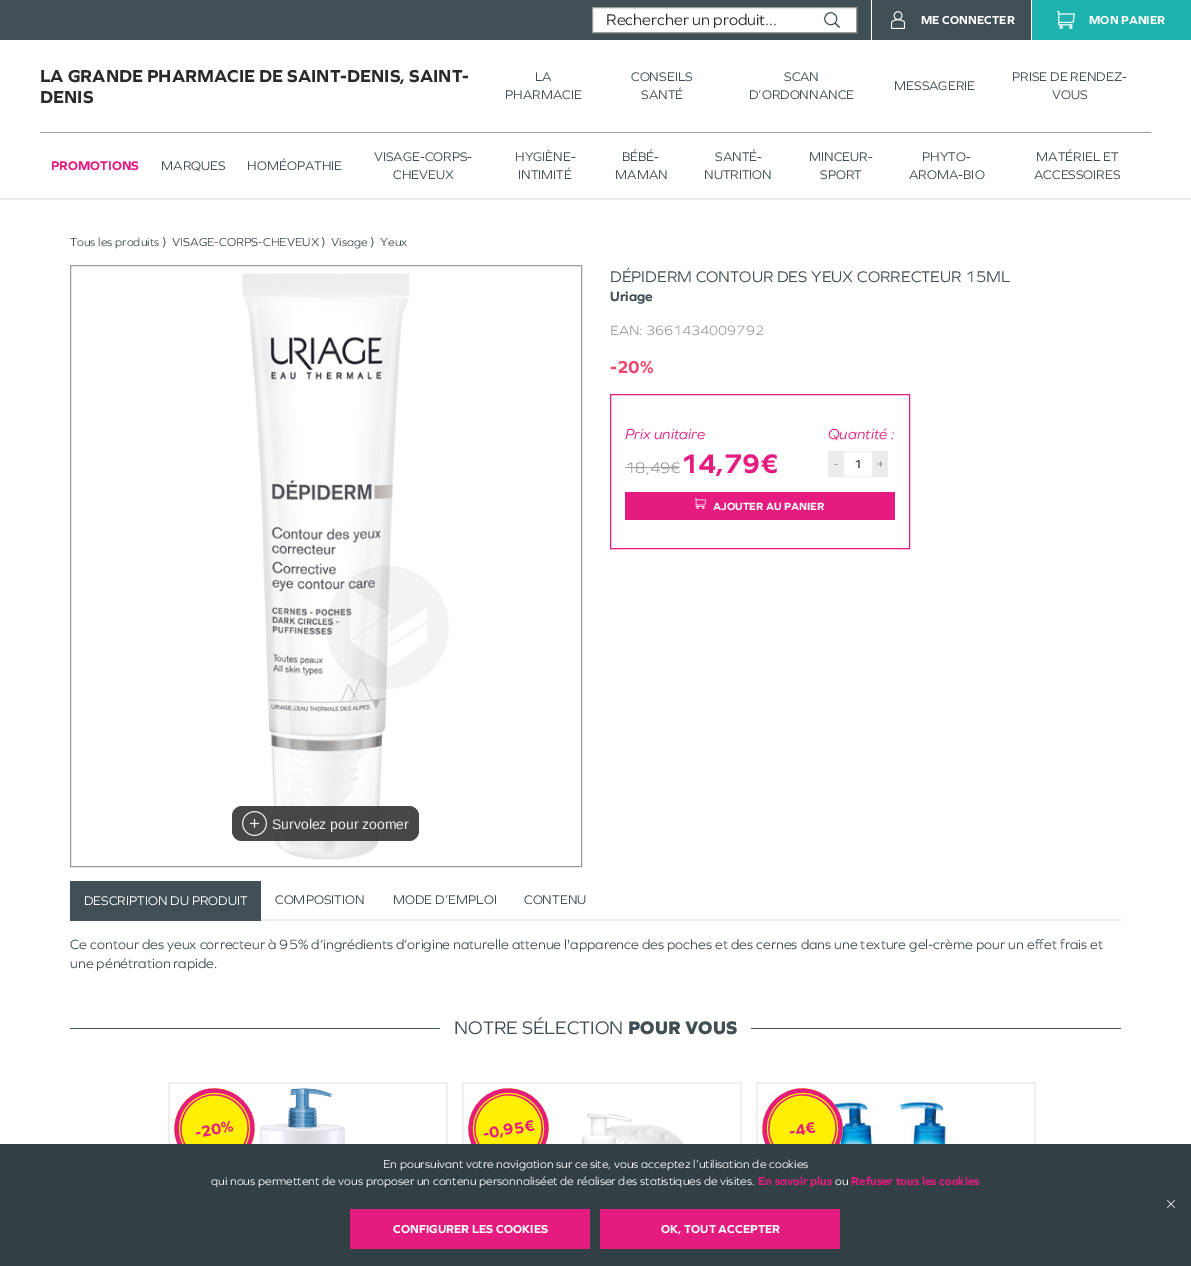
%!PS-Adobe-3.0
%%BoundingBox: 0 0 1191 1266
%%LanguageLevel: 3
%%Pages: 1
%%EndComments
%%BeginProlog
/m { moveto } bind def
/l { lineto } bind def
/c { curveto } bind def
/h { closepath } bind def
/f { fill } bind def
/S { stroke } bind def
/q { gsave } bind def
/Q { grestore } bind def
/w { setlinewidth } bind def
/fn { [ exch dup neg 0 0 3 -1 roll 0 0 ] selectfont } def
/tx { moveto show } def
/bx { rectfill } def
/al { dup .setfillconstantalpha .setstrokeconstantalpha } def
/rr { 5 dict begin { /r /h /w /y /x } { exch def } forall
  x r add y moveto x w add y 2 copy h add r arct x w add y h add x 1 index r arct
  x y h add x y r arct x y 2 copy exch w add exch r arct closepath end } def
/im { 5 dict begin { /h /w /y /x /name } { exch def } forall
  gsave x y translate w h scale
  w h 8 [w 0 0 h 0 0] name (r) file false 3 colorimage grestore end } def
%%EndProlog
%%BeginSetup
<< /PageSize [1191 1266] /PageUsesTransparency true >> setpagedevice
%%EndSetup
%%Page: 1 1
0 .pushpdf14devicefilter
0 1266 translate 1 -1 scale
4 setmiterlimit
1 setgray
0 0 1191 1266 bx
0.251 0.306 0.333 setrgbcolor
0 0 871 40 bx
1 setgray
592.5 7.5 m 856.5 7.5 l 856.5 32.5 l 592.5 32.5 l h q f Q
0.616 0.616 0.612 setrgbcolor
S
/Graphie-Regular 16 fn
0.165 0.169 0.161 setrgbcolor
(Rechercher un produit...) 606 25 tx
(image0.raw) 824 12 16 16 im
0.251 0.306 0.333 setrgbcolor
872 0 159 40 bx
(image1.raw) 890 11 16 18 im
/Graphie-Bold 12 fn
1 setgray
(ME CONNECTER) 921 24 tx
0.122 0.702 0.69 setrgbcolor
1032 0 159 40 bx
(image2.raw) 1057 11 18 18 im
1 setgray
(MON PANIER) 1089 24 tx
0.925 setgray
0 198 1191 2 bx
/Graphie-Bold 18 fn
0.165 0.169 0.161 setrgbcolor
(LA GRANDE PHARMACIE DE SAINT-DENIS, SAINT-) 40 82 tx
(DENIS) 40 103 tx
/Graphie-Regular 13 fn
0.251 0.306 0.333 setrgbcolor
(LA) 535 81 tx
(PHARMACIE) 505 99 tx
(CONSEILS) 631 81 tx
(SANTÉ) 641 99 tx
(SCAN) 784 81 tx
(D’ORDONNANCE) 749 99 tx
(MESSAGERIE) 894 90 tx
(PRISE DE RENDEZ-) 1012 81 tx
(VOUS) 1052 99 tx
0.616 0.616 0.612 setrgbcolor
40 132 1111 1 bx
/Graphie-Bold 13 fn
0.902 0.106 0.502 setrgbcolor
(PROMOTIONS) 51 170 tx
/Graphie-Regular 13 fn
0.251 0.306 0.333 setrgbcolor
(MARQUES) 161 170 tx
(HOMÉOPATHIE) 247 170 tx
(VISAGE-CORPS-) 374 161 tx
(CHEVEUX) 393 179 tx
(HYGIÈNE-) 515 161 tx
(INTIMITÉ) 518 179 tx
(BÉBÉ-) 622 161 tx
(MAMAN) 615 179 tx
(SANTÉ-) 715 161 tx
(NUTRITION) 704 179 tx
(MINCEUR-) 809 161 tx
(SPORT) 820 179 tx
(PHYTO-) 922 161 tx
(AROMA-BIO) 909 179 tx
(MATÉRIEL ET) 1036 161 tx
(ACCESSOIRES) 1034 179 tx
/Graphie-Regular 12 fn
(Tous les produits) 70 246 tx
/DejaVuSans-Regular 12 fn
(⟩) 162 246 tx
/Graphie-Regular 12 fn
(VISAGE-CORPS-CHEVEUX) 172 246 tx
/DejaVuSans-Regular 12 fn
(⟩) 321 246 tx
/Graphie-Regular 12 fn
(Visage) 331 246 tx
/DejaVuSans-Regular 12 fn
(⟩) 370 246 tx
/Graphie-Regular 12 fn
(Yeux) 380 246 tx
/Graphie-Regular 16 fn
(DÉPIDERM CONTOUR DES YEUX CORRECTEUR 15ML) 610 282 tx
/Graphie-Bold 14 fn
(Uriage) 610 301 tx
/Graphie-Regular 14 fn
0.616 0.616 0.612 setrgbcolor
(EAN: 3661434009792) 610 335 tx
/Graphie-Bold 18 fn
0.925 0.278 0.416 setrgbcolor
(-20%) 610 373 tx
0.902 0.106 0.502 setrgbcolor
610.5 394.5 299 154 rectstroke
/Graphie-Italic 15 fn
(Prix unitaire) 625 439 tx
/Graphie-Regular 16 fn
0.616 0.616 0.612 setrgbcolor
(18,49€) 625 473 tx
625 467 55 1 bx
/Graphie-Bold 28 fn
0.902 0.106 0.502 setrgbcolor
(14,79€) 680 473 tx
/Graphie-Italic 15 fn
(Quantité :) 828 439 tx
0.925 setgray
828 451 15 26 bx
/Graphie-Regular 10 fn
0.251 0.306 0.333 setrgbcolor
(-) 834 467 tx
0.937 setgray
843.5 451.5 29 25 rectstroke
/Graphie-Regular 12 fn
0 setgray
(1) 854 468 tx
0.925 setgray
873 451 15 26 bx
/Graphie-Regular 10 fn
0.251 0.306 0.333 setrgbcolor
(+) 877 467 tx
0.902 0.106 0.502 setrgbcolor
625 492 270 28 bx
(image3.raw) 695 498 11 11 im
/Graphie-Bold 11 fn
1 setgray
(AJOUTER AU PANIER) 713 510 tx
0.616 0.616 0.612 setrgbcolor
70.5 265.5 511 601 rectstroke
(image4.raw) 242 273 207 587 im
0.9 al
0.2 setgray
232 806 187 35 10 rr f
1 al
(image5.raw) 242 811 25 25 im
/LiberationSans-Regular 14 fn
0.929 setgray
(Survolez pour zoomer) 272 829 tx
0.251 0.306 0.333 setrgbcolor
70 881 191 40 bx
/Graphie-Regular 13 fn
1 setgray
(DESCRIPTION DU PRODUIT) 84 905 tx
0.925 setgray
261 919 860 2 bx
0.251 0.306 0.333 setrgbcolor
(COMPOSITION) 275 904 tx
(MODE D’EMPLOI) 393 904 tx
(CONTENU) 524 904 tx
/Graphie-Regular 14 fn
(Ce contour des yeux correcteur à 95% d’ingrédients d’origine naturelle attenue l'apparence des poches et des cernes dans une texture gel-crème pour un effet frais et) 70 949 tx
(une pénétration rapide.) 70 968 tx
70 1028 370 1 bx
/Graphie-Regular 19 fn
(NOTRE SÉLECTION) 454 1034 tx
/Graphie-ExtraBold 19 fn
(POUR VOUS) 628 1034 tx
751 1028 370 1 bx
0.937 setgray
168 1082 280 2 bx
446 1082 2 62 bx
168 1082 2 62 bx
1 0.937 0 setrgbcolor
208 1089 m 229 1085 250 1100 254 1122 c 258 1143 243 1164 221 1168 c 200 1172 179 1157 175 1136 c 171 1114 186 1093 208 1089 c h f
0.902 0.106 0.502 setrgbcolor
7 w
208 1092.5 m 228 1089 247 1102.5 250.5 1122 c 254 1142 240.5 1161 221 1164.5 c 201 1168 182 1155 178.5 1135 c 175 1115 188.5 1096 208 1092.5 c h S
/Graphie-Bold 16 fn
q 196 1138 translate -10 rotate 0 0 m (-20%) show Q
1 0.937 0 setrgbcolor
1 w
208.5 1094 m 227.5 1090.5 246 1103.5 249 1122.5 c 252.5 1141.5 239.5 1160 220.5 1163 c 201.5 1166.5 183.5 1154 180 1134.5 c 176.5 1115.5 189.5 1097.5 208.5 1094 c h S
(image6.raw) 260 1088 85 56 im
0.937 setgray
462 1082 280 2 bx
740 1082 2 62 bx
462 1082 2 62 bx
(image7.raw) 545 1113 151 31 im
1 0.937 0 setrgbcolor
502 1089 m 523 1085 544 1100 548 1122 c 552 1143 537 1164 515 1168 c 494 1172 473 1157 469 1136 c 465 1114 480 1093 502 1089 c h f
0.902 0.106 0.502 setrgbcolor
7 w
502 1092.5 m 522 1089 541 1102.5 544.5 1122 c 548 1142 534.5 1161 515 1164.5 c 495 1168 476 1155 472.5 1135 c 469 1115 482.5 1096 502 1092.5 c h S
q 484 1139 translate -10 rotate 0 0 m (-0,95€) show Q
1 0.937 0 setrgbcolor
1 w
502.5 1094 m 521.5 1090.5 540 1103.5 543 1122.5 c 546.5 1141.5 533.5 1160 514.5 1163 c 495.5 1166.5 477.5 1154 474 1134.5 c 470.5 1115.5 483.5 1097.5 502.5 1094 c h S
0.937 setgray
756 1082 280 2 bx
1034 1082 2 62 bx
756 1082 2 62 bx
(image8.raw) 827 1097 140 47 im
1 0.937 0 setrgbcolor
796 1089 m 817 1085 838 1100 842 1122 c 846 1143 831 1164 809 1168 c 788 1172 767 1157 763 1136 c 759 1114 774 1093 796 1089 c h f
0.902 0.106 0.502 setrgbcolor
7 w
796 1092.5 m 816 1089 835 1102.5 838.5 1122 c 842 1142 828.5 1161 809 1164.5 c 789 1168 770 1155 766.5 1135 c 763 1115 776.5 1096 796 1092.5 c h S
q 790 1137 translate -10 rotate 0 0 m (-4€) show Q
1 0.937 0 setrgbcolor
1 w
796.5 1094 m 815.5 1090.5 834 1103.5 837 1122.5 c 840.5 1141.5 827.5 1160 808.5 1163 c 789.5 1166.5 771.5 1154 768 1134.5 c 764.5 1115.5 777.5 1097.5 796.5 1094 c h S
0.196 0.251 0.271 setrgbcolor
0 1144 1191 122 bx
/Graphie-Regular 12 fn
1 setgray
(En poursuivant votre navigation sur ce site, vous acceptez l’utilisation de cookies) 383 1168 tx
(qui nous permettent de vous proposer un contenu personnaliséet de réaliser des statistiques de visites.) 211 1185 tx
/Graphie-Bold 12 fn
0.902 0.106 0.502 setrgbcolor
(En savoir plus) 758 1185 tx
/Graphie-Regular 12 fn
1 setgray
(ou) 835 1185 tx
/Graphie-Bold 12 fn
0.902 0.106 0.502 setrgbcolor
(Refuser tous les cookies) 851 1185 tx
350 1209 240 40 bx
1 setgray
(CONFIGURER LES COOKIES) 393 1233 tx
0.902 0.106 0.502 setrgbcolor
600 1209 240 40 bx
1 setgray
(OK, TOUT ACCEPTER) 661 1233 tx
(image9.raw) 1167 1200 8 8 im
.poppdf14devicefilter showpage
%%EOF
